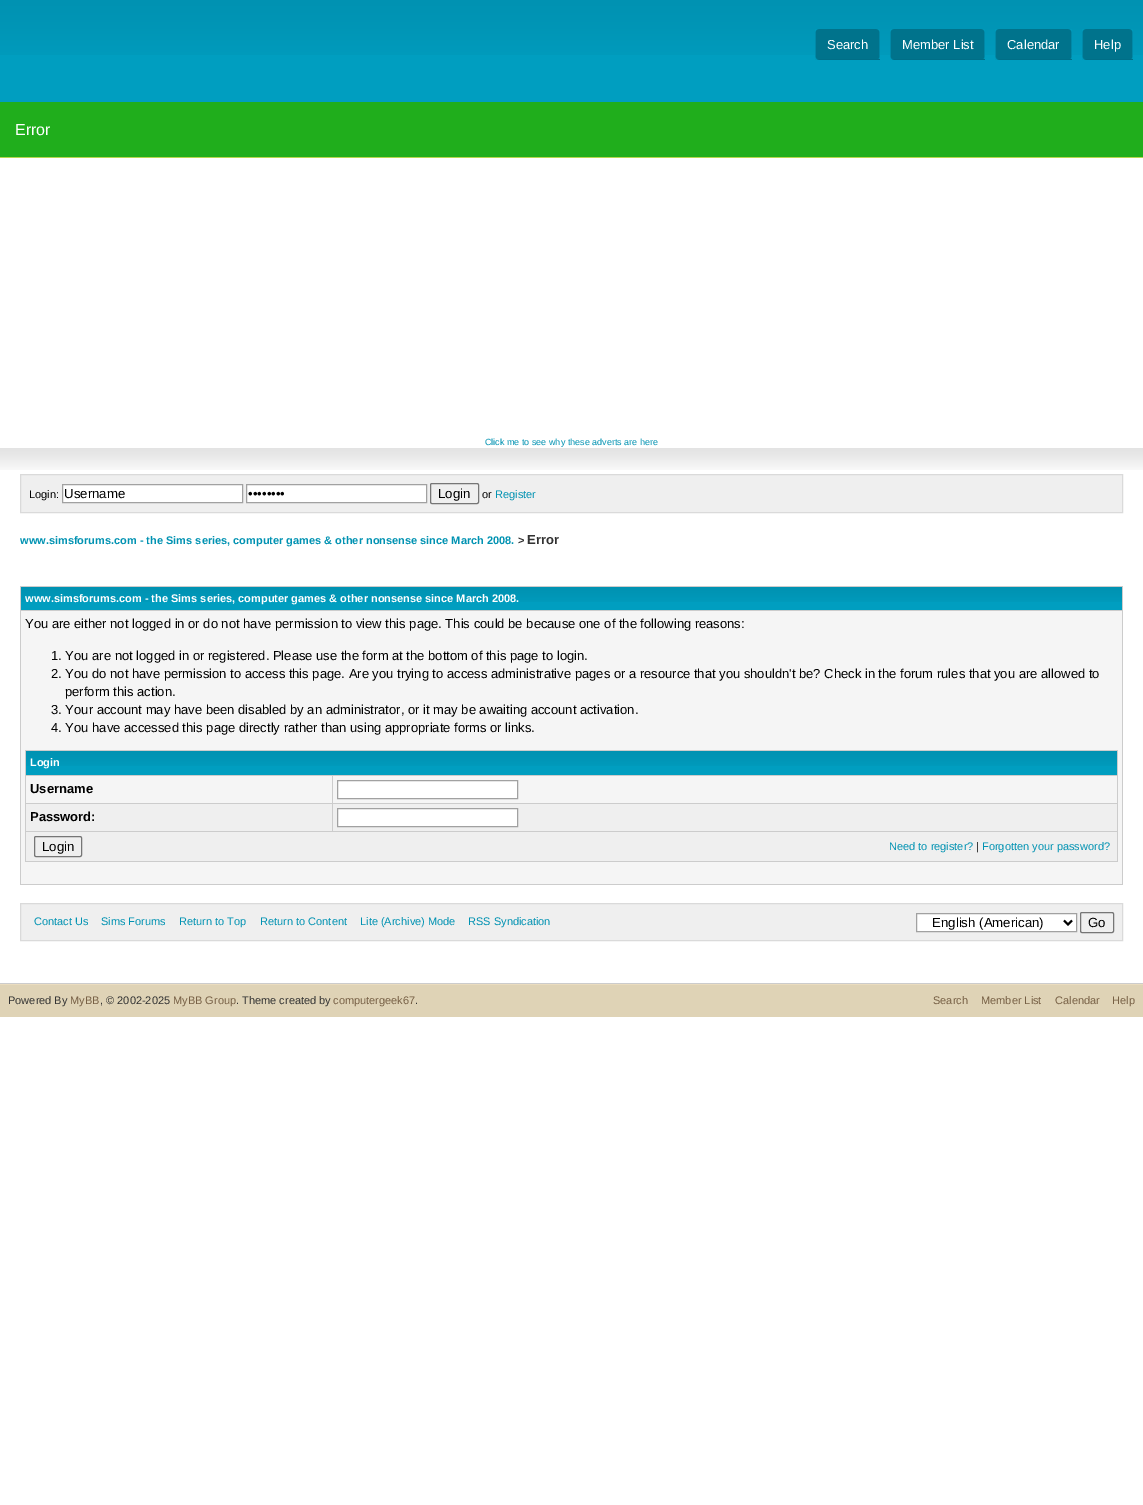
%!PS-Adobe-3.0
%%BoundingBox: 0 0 1143 1505
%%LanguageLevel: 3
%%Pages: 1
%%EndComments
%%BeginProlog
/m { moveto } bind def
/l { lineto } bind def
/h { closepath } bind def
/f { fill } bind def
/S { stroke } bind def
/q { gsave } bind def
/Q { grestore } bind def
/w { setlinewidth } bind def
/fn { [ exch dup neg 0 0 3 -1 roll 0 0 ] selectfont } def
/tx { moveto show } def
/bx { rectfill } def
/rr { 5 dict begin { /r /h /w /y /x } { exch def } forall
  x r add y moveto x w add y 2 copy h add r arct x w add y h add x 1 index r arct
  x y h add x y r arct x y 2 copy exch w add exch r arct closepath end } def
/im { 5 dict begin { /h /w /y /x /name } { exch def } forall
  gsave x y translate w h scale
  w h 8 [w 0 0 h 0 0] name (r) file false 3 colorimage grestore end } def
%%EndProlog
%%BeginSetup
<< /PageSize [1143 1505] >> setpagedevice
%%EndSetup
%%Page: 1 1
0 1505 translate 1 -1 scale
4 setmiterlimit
1 setgray
0 0 1143 1505 bx
0 0.62 0.753 setrgbcolor
0 55 1143 47 bx
(image0.raw) 0 0 1143 55 im
(image1.raw) 815 29 65 31 im
/LiberationSans-Regular 13 fn
1 setgray
(Search) 827 49 tx
(image2.raw) 876 29 4 30 im
(image3.raw) 890 29 95 31 im
(Member List) 902 49 tx
(image2.raw) 981 29 4 30 im
(image4.raw) 995 29 77 31 im
(Calendar) 1007 49 tx
(image5.raw) 1068 29 4 30 im
(image6.raw) 1082 29 51 31 im
(Help) 1094 49 tx
(image5.raw) 1129 29 4 30 im
0.125 0.682 0.11 setrgbcolor
0 102 1143 55 bx
0.718 0.839 0.306 setrgbcolor
0 157 1143 1 bx
/LiberationSans-Regular 16 fn
1 setgray
(Error) 15 135 tx
/LiberationSans-Regular 9 fn
0 0.573 0.698 setrgbcolor
(Click me to see why these adverts are here) 485 445 tx
(image7.raw) 0 448 1143 22 im
0.8 setgray
0 983 1143 1 bx
0.937 setgray
20.5 474.5 m 1122.5 474.5 l 1122.5 512.5 l 20.5 512.5 l h q f Q
0.855 setgray
S
/LiberationSans-Regular 11 fn
0 setgray
(Login:) 29 498 tx
1 setgray
62.5 484.5 m 242.5 484.5 l 242.5 502.5 l 62.5 502.5 l h q f Q
0.631 setgray
S
/LiberationSans-Regular 13.25 fn
0 setgray
(Username) 64 498 tx
1 setgray
246.5 484.5 m 426.5 484.5 l 426.5 502.5 l 246.5 502.5 l h q f Q
0.631 setgray
S
0 setgray
(••••••••) 248 498 tx
0.463 setgray
430.5 483.5 48 20 1.5 rr S
0 setgray
(Login) 438 498 tx
/LiberationSans-Regular 11 fn
(or) 482 498 tx
0 0.573 0.698 setrgbcolor
(Register) 495 498 tx
/LiberationSans-Bold 11 fn
(www.simsforums.com - the Sims series, computer games & other nonsense since March 2008.) 20 544 tx
0.2 setgray
(>) 518 544 tx
/LiberationSans-Bold 13 fn
(Error) 527 544 tx
0.8 setgray
20 586 1103 299 bx
0 0.62 0.753 setrgbcolor
21 602 1101 8 bx
(image8.raw) 21 587 1101 15 im
/LiberationSans-Bold 11 fn
1 setgray
(www.simsforums.com - the Sims series, computer games & other nonsense since March 2008.) 25 602 tx
0.961 setgray
21 611 1101 273 bx
/LiberationSans-Regular 13 fn
0 setgray
(You are either not logged in or do not have permission to view this page. This could be because one of the following reasons:) 25 628 tx
(1. You are not logged in or registered. Please use the form at the bottom of this page to login.) 51 660 tx
(2. You do not have permission to access this page. Are you trying to access administrative pages or a resource that you shouldn't be? Check in the forum rules that you are allowed to) 51 678 tx
(perform this action.) 65 696 tx
(3. Your account may have been disabled by an administrator, or it may be awaiting account activation.) 51 714 tx
(4. You have accessed this page directly rather than using appropriate forms or links.) 51 732 tx
0.8 setgray
25 750 1093 112 bx
0 0.62 0.753 setrgbcolor
26 766 1091 9 bx
(image9.raw) 26 751 1091 15 im
/LiberationSans-Bold 11 fn
1 setgray
(Login) 30 766 tx
0.961 setgray
26 776 306 27 bx
/LiberationSans-Bold 13 fn
0 setgray
(Username) 30 793 tx
0.961 setgray
333 776 784 27 bx
1 setgray
337.5 780.5 m 517.5 780.5 l 517.5 798.5 l 337.5 798.5 l h q f Q
0.631 setgray
S
0.937 setgray
26 804 306 27 bx
0 setgray
(Password:) 30 821 tx
0.937 setgray
333 804 784 27 bx
1 setgray
337.5 808.5 m 517.5 808.5 l 517.5 826.5 l 337.5 826.5 l h q f Q
0.631 setgray
S
0.937 setgray
26 832 1091 29 bx
0.463 setgray
34.5 836.5 47 20 1.5 rr S
/LiberationSans-Regular 13.25 fn
0 setgray
(Login) 42 851 tx
/LiberationSans-Regular 11 fn
0 0.573 0.698 setrgbcolor
(Need to register?) 889 850 tx
0 setgray
(|) 976 850 tx
0 0.573 0.698 setrgbcolor
(Forgotten your password?) 982 850 tx
0.937 setgray
20.5 903.5 m 1122.5 903.5 l 1122.5 940.5 l 20.5 940.5 l h q f Q
0.855 setgray
S
0 0.573 0.698 setrgbcolor
(Contact Us) 34 925 tx
(Sims Forums) 101 925 tx
(Return to Top) 179 925 tx
(Return to Content) 260 925 tx
(Lite \(Archive\) Mode) 360 925 tx
(RSS Syndication) 468 925 tx
1 setgray
916.5 913.5 m 1076.5 913.5 l 1076.5 931.5 l 916.5 931.5 l h q f Q
0.631 setgray
S
0 setgray
2 w
1064 920.5 m 1068 924.5 l 1072 920.5 l S
/LiberationSans-Regular 13.25 fn
(English \(American\)) 932 927 tx
0.463 setgray
1 w
1080.5 912.5 33 20 1.5 rr S
0 setgray
(Go) 1088 927 tx
0.875 0.827 0.714 setrgbcolor
0 985 1143 32 bx
0.918 0.863 0.749 setrgbcolor
0 984 1143 1 bx
/LiberationSans-Regular 11 fn
0.2 setgray
(Powered By) 8 1004 tx
0.467 0.376 0.271 setrgbcolor
(MyBB) 70 1004 tx
0.2 setgray
(, © 2002-2025) 100 1004 tx
0.467 0.376 0.271 setrgbcolor
(MyBB Group) 173 1004 tx
0.2 setgray
(. Theme created by) 236 1004 tx
0.467 0.376 0.271 setrgbcolor
(computergeek67) 333 1004 tx
0.2 setgray
(.) 415 1004 tx
0.467 0.376 0.271 setrgbcolor
(Search) 933 1004 tx
(Member List) 981 1004 tx
(Calendar) 1055 1004 tx
(Help) 1112 1004 tx
showpage
%%EOF
